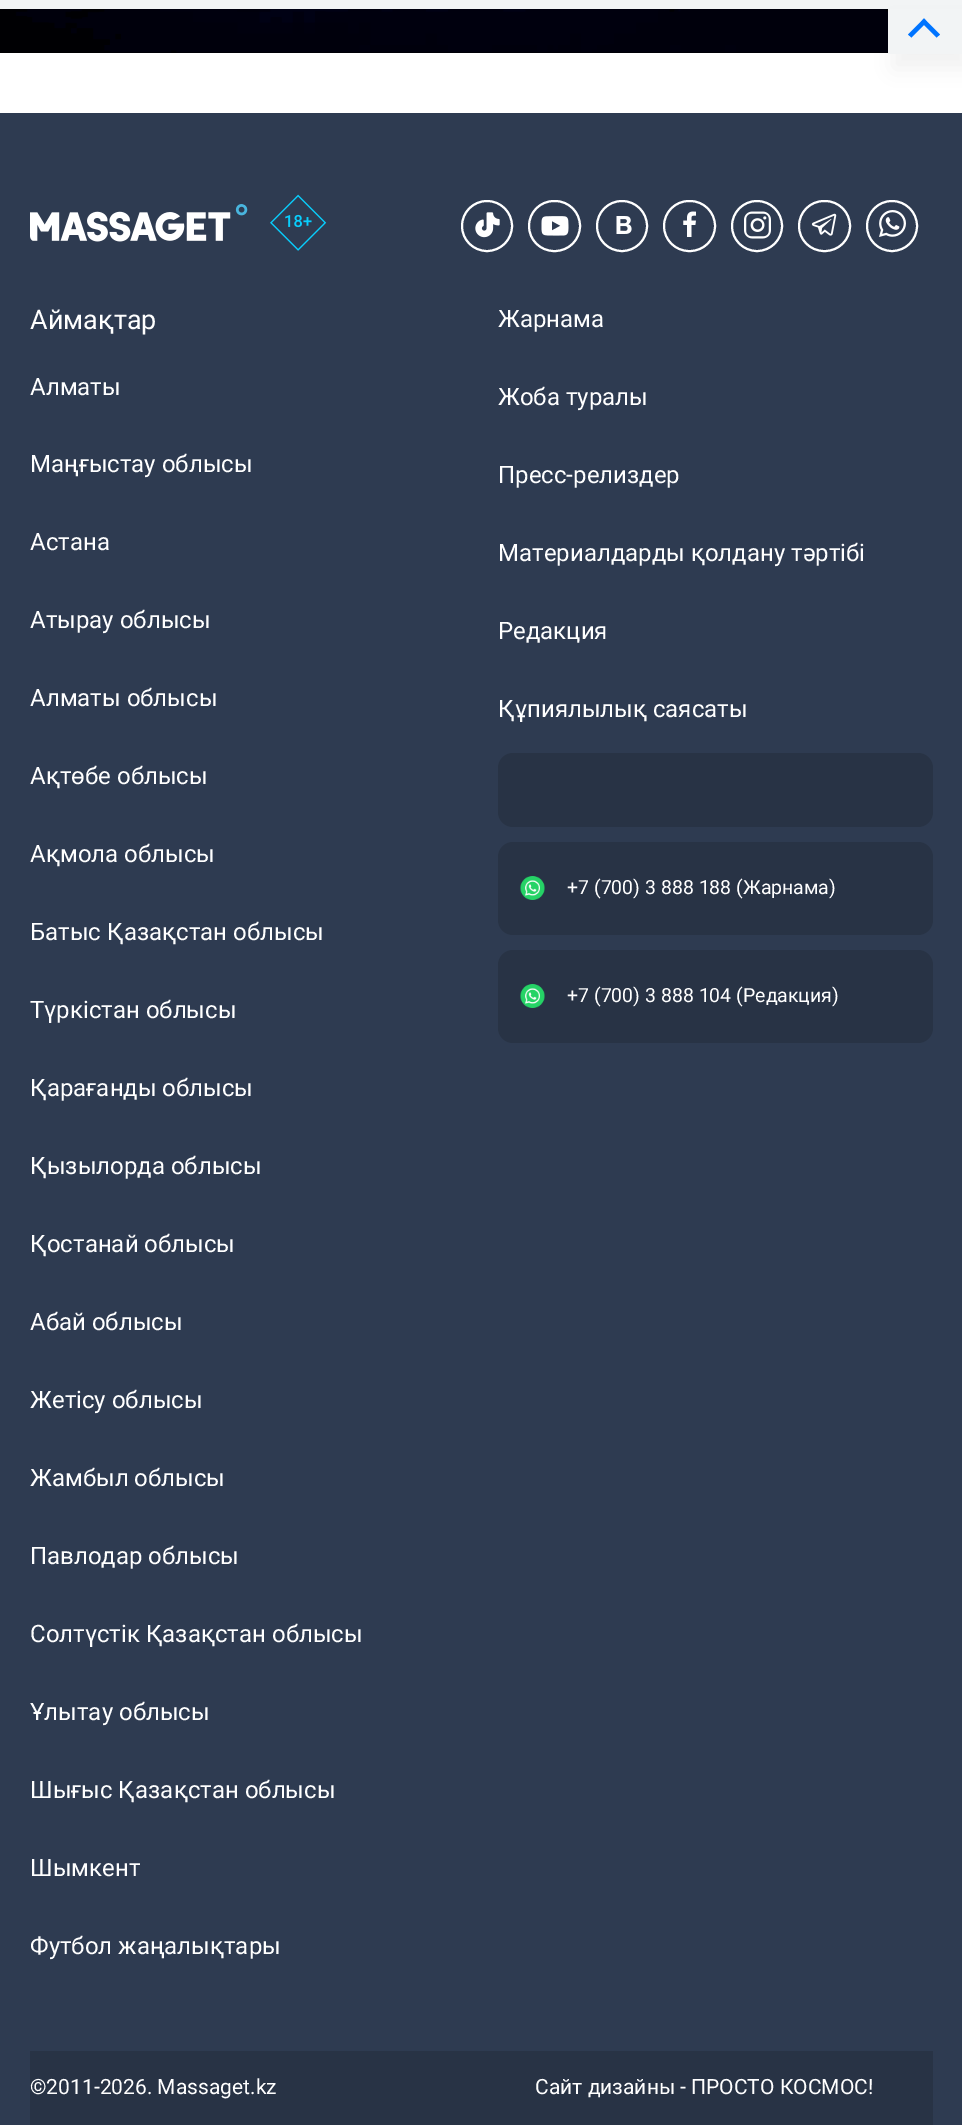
%!PS-Adobe-3.0
%%BoundingBox: 0 0 962 2125
%%LanguageLevel: 3
%%Pages: 1
%%EndComments
%%BeginProlog
/m { moveto } bind def
/l { lineto } bind def
/h { closepath } bind def
/f { fill } bind def
/S { stroke } bind def
/w { setlinewidth } bind def
/fn { [ exch dup neg 0 0 3 -1 roll 0 0 ] selectfont } def
/tx { moveto show } def
/bx { rectfill } def
/al { dup .setfillconstantalpha .setstrokeconstantalpha } def
/ci { newpath 0 360 arc closepath } def
/rr { 5 dict begin { /r /h /w /y /x } { exch def } forall
  x r add y moveto x w add y 2 copy h add r arct x w add y h add x 1 index r arct
  x y h add x y r arct x y 2 copy exch w add exch r arct closepath end } def
/sh { 12 dict begin { /a /b /q /h /w /y /x } { exch def } forall gsave /was 0 def
  9 -2 -9 { dup b mul 4 div /e exch def 1 sub .425 mul 2.718 exch exp 1 add a .99 .min exch div /now exch def
    1 1 now sub 1 was sub div sub al /was now def
    w h .min e 2 mul add 0 gt { x e sub y e sub w e 2 mul add h e 2 mul add
      q e add b .6 mul add w h .min 2 div e add .min 0 .max rr fill } if } for grestore end } def
/im { 5 dict begin { /h /w /y /x /name } { exch def } forall
  gsave x y translate w h scale
  w h 8 [w 0 0 h 0 0] name (r) file false 3 colorimage grestore end } def
%%EndProlog
%%BeginSetup
<< /PageSize [962 2125] /PageUsesTransparency true >> setpagedevice
%%EndSetup
%%Page: 1 1
0 .pushpdf14devicefilter
0 2125 translate 1 -1 scale
4 setmiterlimit
1 setgray
0 0 962 2125 bx
0.949 0.957 0.961 setrgbcolor
0 0 962 9 bx
0 setgray
0 9 888 44 bx
(image0.raw) 0 9 888 44 im
893 24 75 45 0 11 0.05 sh
0.949 0.957 0.961 setrgbcolor
888 9 74 45 bx
0 0.455 1 setrgbcolor
911.5 37.5 m 908 34.5 l 924 18.5 l 927 22 l h f
936.5 37.5 m 921 22 l 924 18.5 l 940 34.5 l h f
0.18 0.231 0.318 setrgbcolor
0 113 962 2012 bx
(image1.raw) 30 204 218 38 im
(image2.raw) 270 194 57 57 im
1 setgray
2 w
487 226 25 ci S
(image3.raw) 475 212 25 26 im
529 201 51 50 25 rr S
(image4.raw) 541 216 28 20 im
622 226 25 ci S
(image5.raw) 616 216 16 18 im
664 201 51 50 25 rr S
(image6.raw) 683 211 13 26 im
757 226 25 ci S
(image7.raw) 744 211 27 28 im
799 201 51 50 25 rr S
(image8.raw) 811 213 26 23 im
892 226 25 ci S
(image9.raw) 879 210 27 27 im
/Roboto-Regular 27 fn
(Аймақтар) 30 329 tx
/Roboto-Regular 24 fn
(Алматы) 30 395 tx
(Маңғыстау облысы) 30 472 tx
(Астана) 30 550 tx
(Атырау облысы) 30 628 tx
(Алматы облысы) 30 706 tx
(Ақтөбе облысы) 30 784 tx
(Ақмола облысы) 30 862 tx
(Батыс Қазақстан облысы) 30 940 tx
(Түркістан облысы) 30 1018 tx
(Қарағанды облысы) 30 1096 tx
(Қызылорда облысы) 30 1174 tx
(Қостанай облысы) 30 1252 tx
(Абай облысы) 30 1330 tx
(Жетісу облысы) 30 1408 tx
(Жамбыл облысы) 30 1486 tx
(Павлодар облысы) 30 1564 tx
(Солтүстік Қазақстан облысы) 30 1642 tx
(Ұлытау облысы) 30 1720 tx
(Шығыс Қазақстан облысы) 30 1798 tx
(Шымкент) 30 1876 tx
(Футбол жаңалықтары) 30 1954 tx
(Жарнама) 498 327 tx
(Жоба туралы) 498 405 tx
(Пресс-релиздер) 498 483 tx
(Материалдарды қолдану тәртібі) 498 561 tx
(Редакция) 498 639 tx
(Құпиялылық саясаты) 498 717 tx
0.157 0.2 0.271 setrgbcolor
498 753 435 74 15 rr f
498 842 435 93 15 rr f
(image10.raw) 520 876 25 24 im
/Roboto-Regular 19.5 fn
1 setgray
(+7 \(700\) 3 888 188 \(Жарнама\)) 567 894 tx
0.157 0.2 0.271 setrgbcolor
498 950 435 93 15 rr f
(image10.raw) 520 984 25 24 im
1 setgray
(+7 \(700\) 3 888 104 \(Редакция\)) 567 1002 tx
0.157 0.2 0.271 setrgbcolor
30 2051 903 74 bx
/Roboto-Regular 21 fn
1 setgray
(©2011-2026. Massaget.kz) 30 2094 tx
(Сайт дизайны - ПРОСТО КОСМОС!) 535 2094 tx
.poppdf14devicefilter showpage
%%EOF
